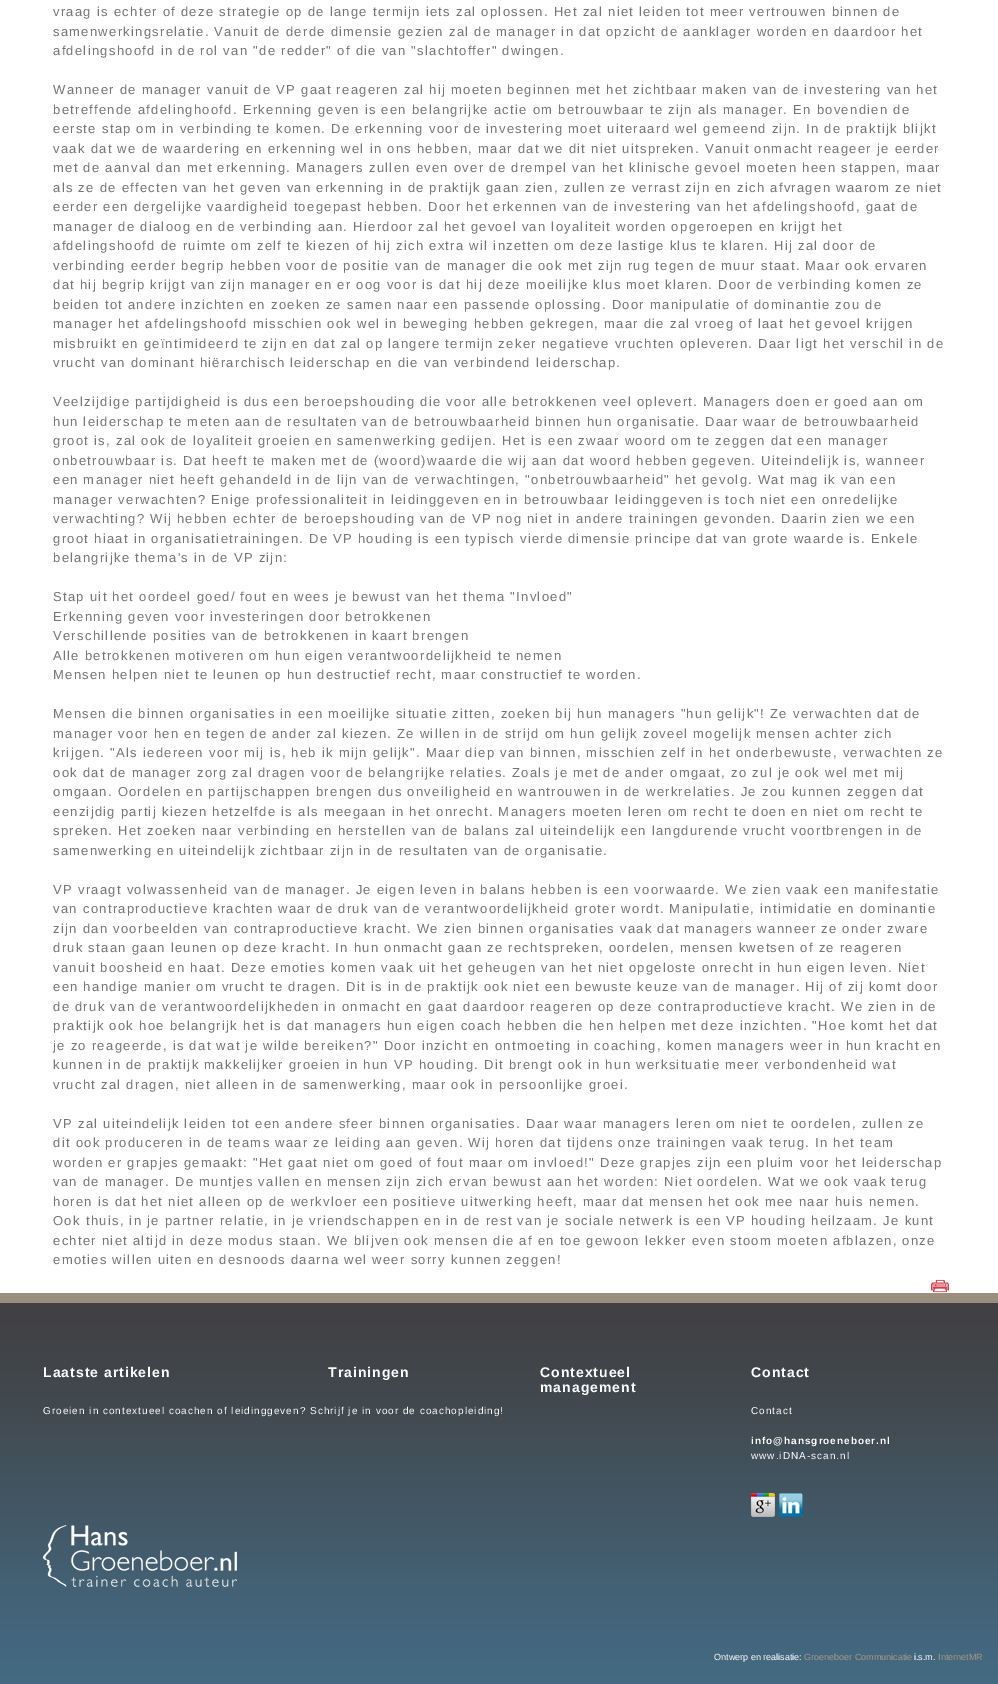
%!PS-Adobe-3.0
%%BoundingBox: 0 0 998 1684
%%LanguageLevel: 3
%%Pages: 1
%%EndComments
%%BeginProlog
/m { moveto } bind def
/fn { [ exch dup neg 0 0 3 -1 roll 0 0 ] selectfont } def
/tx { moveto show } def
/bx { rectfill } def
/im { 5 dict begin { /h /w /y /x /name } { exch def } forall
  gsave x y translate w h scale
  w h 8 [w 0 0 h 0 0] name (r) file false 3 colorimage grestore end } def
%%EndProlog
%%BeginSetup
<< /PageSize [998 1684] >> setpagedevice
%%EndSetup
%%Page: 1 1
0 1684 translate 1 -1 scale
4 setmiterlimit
1 setgray
0 0 998 1684 bx
/LiberationSans-Regular 13 fn
0.459 setgray
53 16 m 1.3 0 (vraag is echter of deze strategie op de lange termijn iets zal oplossen. Het zal niet leiden tot meer vertrouwen binnen de) ashow
53 36 m 1.3 0 (samenwerkingsrelatie. Vanuit de derde dimensie gezien zal de manager in dat opzicht de aanklager worden en daardoor het) ashow
53 55 m 1.3 0 (afdelingshoofd in de rol van "de redder" of die van "slachtoffer" dwingen.) ashow
53 94 m 1.3 0 (Wanneer de manager vanuit de VP gaat reageren zal hij moeten beginnen met het zichtbaar maken van de investering van het) ashow
53 114 m 1.3 0 (betreffende afdelinghoofd. Erkenning geven is een belangrijke actie om betrouwbaar te zijn als manager. En bovendien de) ashow
53 133 m 1.3 0 (eerste stap om in verbinding te komen. De erkenning voor de investering moet uiteraard wel gemeend zijn. In de praktijk blijkt) ashow
53 153 m 1.3 0 (vaak dat we de waardering en erkenning wel in ons hebben, maar dat we dit niet uitspreken. Vanuit onmacht reageer je eerder) ashow
53 172 m 1.3 0 (met de aanval dan met erkenning. Managers zullen even over de drempel van het klinische gevoel moeten heen stappen, maar) ashow
53 192 m 1.3 0 (als ze de effecten van het geven van erkenning in de praktijk gaan zien, zullen ze verrast zijn en zich afvragen waarom ze niet) ashow
53 211 m 1.3 0 (eerder een dergelijke vaardigheid toegepast hebben. Door het erkennen van de investering van het afdelingshoofd, gaat de) ashow
53 231 m 1.3 0 (manager de dialoog en de verbinding aan. Hierdoor zal het gevoel van loyaliteit worden opgeroepen en krijgt het) ashow
53 250 m 1.3 0 (afdelingshoofd de ruimte om zelf te kiezen of hij zich extra wil inzetten om deze lastige klus te klaren. Hij zal door de) ashow
53 270 m 1.3 0 (verbinding eerder begrip hebben voor de positie van de manager die ook met zijn rug tegen de muur staat. Maar ook ervaren) ashow
53 289 m 1.3 0 (dat hij begrip krijgt van zijn manager en er oog voor is dat hij deze moeilijke klus moet klaren. Door de verbinding komen ze) ashow
53 309 m 1.3 0 (beiden tot andere inzichten en zoeken ze samen naar een passende oplossing. Door manipulatie of dominantie zou de) ashow
53 328 m 1.3 0 (manager het afdelingshoofd misschien ook wel in beweging hebben gekregen, maar die zal vroeg of laat het gevoel krijgen) ashow
53 348 m 1.3 0 (misbruikt en geïntimideerd te zijn en dat zal op langere termijn zeker negatieve vruchten opleveren. Daar ligt het verschil in de) ashow
53 367 m 1.3 0 (vrucht van dominant hiërarchisch leiderschap en die van verbindend leiderschap.) ashow
53 406 m 1.3 0 (Veelzijdige partijdigheid is dus een beroepshouding die voor alle betrokkenen veel oplevert. Managers doen er goed aan om) ashow
53 426 m 1.3 0 (hun leiderschap te meten aan de resultaten van de betrouwbaarheid binnen hun organisatie. Daar waar de betrouwbaarheid) ashow
53 445 m 1.3 0 (groot is, zal ook de loyaliteit groeien en samenwerking gedijen. Het is een zwaar woord om te zeggen dat een manager) ashow
53 465 m 1.3 0 (onbetrouwbaar is. Dat heeft te maken met de \(woord\)waarde die wij aan dat woord hebben gegeven. Uiteindelijk is, wanneer) ashow
53 484 m 1.3 0 (een manager niet heeft gehandeld in de lijn van de verwachtingen, "onbetrouwbaarheid" het gevolg. Wat mag ik van een) ashow
53 504 m 1.3 0 (manager verwachten? Enige professionaliteit in leidinggeven en in betrouwbaar leidinggeven is toch niet een onredelijke) ashow
53 523 m 1.3 0 (verwachting? Wij hebben echter de beroepshouding van de VP nog niet in andere trainingen gevonden. Daarin zien we een) ashow
53 543 m 1.3 0 (groot hiaat in organisatietrainingen. De VP houding is een typisch vierde dimensie principe dat van grote waarde is. Enkele) ashow
53 562 m 1.3 0 (belangrijke thema's in de VP zijn:) ashow
53 601 m 1.3 0 (Stap uit het oordeel goed/ fout en wees je bewust van het thema "Invloed") ashow
53 621 m 1.3 0 (Erkenning geven voor investeringen door betrokkenen) ashow
53 640 m 1.3 0 (Verschillende posities van de betrokkenen in kaart brengen) ashow
53 660 m 1.3 0 (Alle betrokkenen motiveren om hun eigen verantwoordelijkheid te nemen) ashow
53 679 m 1.3 0 (Mensen helpen niet te leunen op hun destructief recht, maar constructief te worden.) ashow
53 718 m 1.3 0 (Mensen die binnen organisaties in een moeilijke situatie zitten, zoeken bij hun managers "hun gelijk"! Ze verwachten dat de) ashow
53 738 m 1.3 0 (manager voor hen en tegen de ander zal kiezen. Ze willen in de strijd om hun gelijk zoveel mogelijk mensen achter zich) ashow
53 757 m 1.3 0 (krijgen. "Als iedereen voor mij is, heb ik mijn gelijk". Maar diep van binnen, misschien zelf in het onderbewuste, verwachten ze) ashow
53 777 m 1.3 0 (ook dat de manager zorg zal dragen voor de belangrijke relaties. Zoals je met de ander omgaat, zo zul je ook wel met mij) ashow
53 796 m 1.3 0 (omgaan. Oordelen en partijschappen brengen dus onveiligheid en wantrouwen in de werkrelaties. Je zou kunnen zeggen dat) ashow
53 816 m 1.3 0 (eenzijdig partij kiezen hetzelfde is als meegaan in het onrecht. Managers moeten leren om recht te doen en niet om recht te) ashow
53 835 m 1.3 0 (spreken. Het zoeken naar verbinding en herstellen van de balans zal uiteindelijk een langdurende vrucht voortbrengen in de) ashow
53 855 m 1.3 0 (samenwerking en uiteindelijk zichtbaar zijn in de resultaten van de organisatie.) ashow
53 894 m 1.3 0 (VP vraagt volwassenheid van de manager. Je eigen leven in balans hebben is een voorwaarde. We zien vaak een manifestatie) ashow
53 913 m 1.3 0 (van contraproductieve krachten waar de druk van de verantwoordelijkheid groter wordt. Manipulatie, intimidatie en dominantie) ashow
53 933 m 1.3 0 (zijn dan voorbeelden van contraproductieve kracht. We zien binnen organisaties vaak dat managers wanneer ze onder zware) ashow
53 952 m 1.3 0 (druk staan gaan leunen op deze kracht. In hun onmacht gaan ze rechtspreken, oordelen, mensen kwetsen of ze reageren) ashow
53 972 m 1.3 0 (vanuit boosheid en haat. Deze emoties komen vaak uit het geheugen van het niet opgeloste onrecht in hun eigen leven. Niet) ashow
53 991 m 1.3 0 (een handige manier om vrucht te dragen. Dit is in de praktijk ook niet een bewuste keuze van de manager. Hij of zij komt door) ashow
53 1011 m 1.3 0 (de druk van de verantwoordelijkheden in onmacht en gaat daardoor reageren op deze contraproductieve kracht. We zien in de) ashow
53 1030 m 1.3 0 (praktijk ook hoe belangrijk het is dat managers hun eigen coach hebben die hen helpen met deze inzichten. "Hoe komt het dat) ashow
53 1050 m 1.3 0 (je zo reageerde, is dat wat je wilde bereiken?" Door inzicht en ontmoeting in coaching, komen managers weer in hun kracht en) ashow
53 1069 m 1.3 0 (kunnen in de praktijk makkelijker groeien in hun VP houding. Dit brengt ook in hun werksituatie meer verbondenheid wat) ashow
53 1089 m 1.3 0 (vrucht zal dragen, niet alleen in de samenwerking, maar ook in persoonlijke groei.) ashow
53 1128 m 1.3 0 (VP zal uiteindelijk leiden tot een andere sfeer binnen organisaties. Daar waar managers leren om niet te oordelen, zullen ze) ashow
53 1147 m 1.3 0 (dit ook produceren in de teams waar ze leiding aan geven. Wij horen dat tijdens onze trainingen vaak terug. In het team) ashow
53 1167 m 1.3 0 (worden er grapjes gemaakt: "Het gaat niet om goed of fout maar om invloed!" Deze grapjes zijn een pluim voor het leiderschap) ashow
53 1186 m 1.3 0 (van de manager. De muntjes vallen en mensen zijn zich ervan bewust aan het worden: Niet oordelen. Wat we ook vaak terug) ashow
53 1206 m 1.3 0 (horen is dat het niet alleen op de werkvloer een positieve uitwerking heeft, maar dat mensen het ook mee naar huis nemen.) ashow
53 1225 m 1.3 0 (Ook thuis, in je partner relatie, in je vriendschappen en in de rest van je sociale netwerk is een VP houding heilzaam. Je kunt) ashow
53 1245 m 1.3 0 (echter niet altijd in deze modus staan. We blijven ook mensen die af en toe gewoon lekker even stoom moeten afblazen, onze) ashow
53 1264 m 1.3 0 (emoties willen uiten en desnoods daarna wel weer sorry kunnen zeggen!) ashow
(image0.raw) 931 1279 18 14 im
(image1.raw) 0 1293 998 391 im
/LiberationSans-Bold 14 fn
1 setgray
43 1377 m 1 0 (Laatste artikelen) ashow
328 1377 m 1 0 (Trainingen) ashow
540 1377 m 1 0 (Contextueel) ashow
540 1392 m 1 0 (management) ashow
751 1377 m 1 0 (Contact) ashow
/LiberationSans-Regular 10 fn
43 1414 m 1 0 (Groeien in contextueel coachen of leidinggeven? Schrijf je in voor de coachopleiding!) ashow
751 1414 m 1 0 (Contact) ashow
/LiberationSans-Bold 10 fn
751 1444 m 1 0 (info@hansgroeneboer.nl) ashow
/LiberationSans-Regular 10 fn
751 1459 m 1 0 (www.iDNA-scan.nl) ashow
(image2.raw) 751 1493 24 24 im
(image3.raw) 779 1493 24 24 im
(image4.raw) 43 1525 194 62 im
/LiberationSans-Regular 9 fn
(Ontwerp en realisatie:) 714 1660 tx
0.655 0.608 0.518 setrgbcolor
(Groeneboer Communicatie) 804 1660 tx
1 setgray
(i.s.m.) 914 1660 tx
0.655 0.608 0.518 setrgbcolor
(InternetMR) 938 1660 tx
showpage
%%EOF
